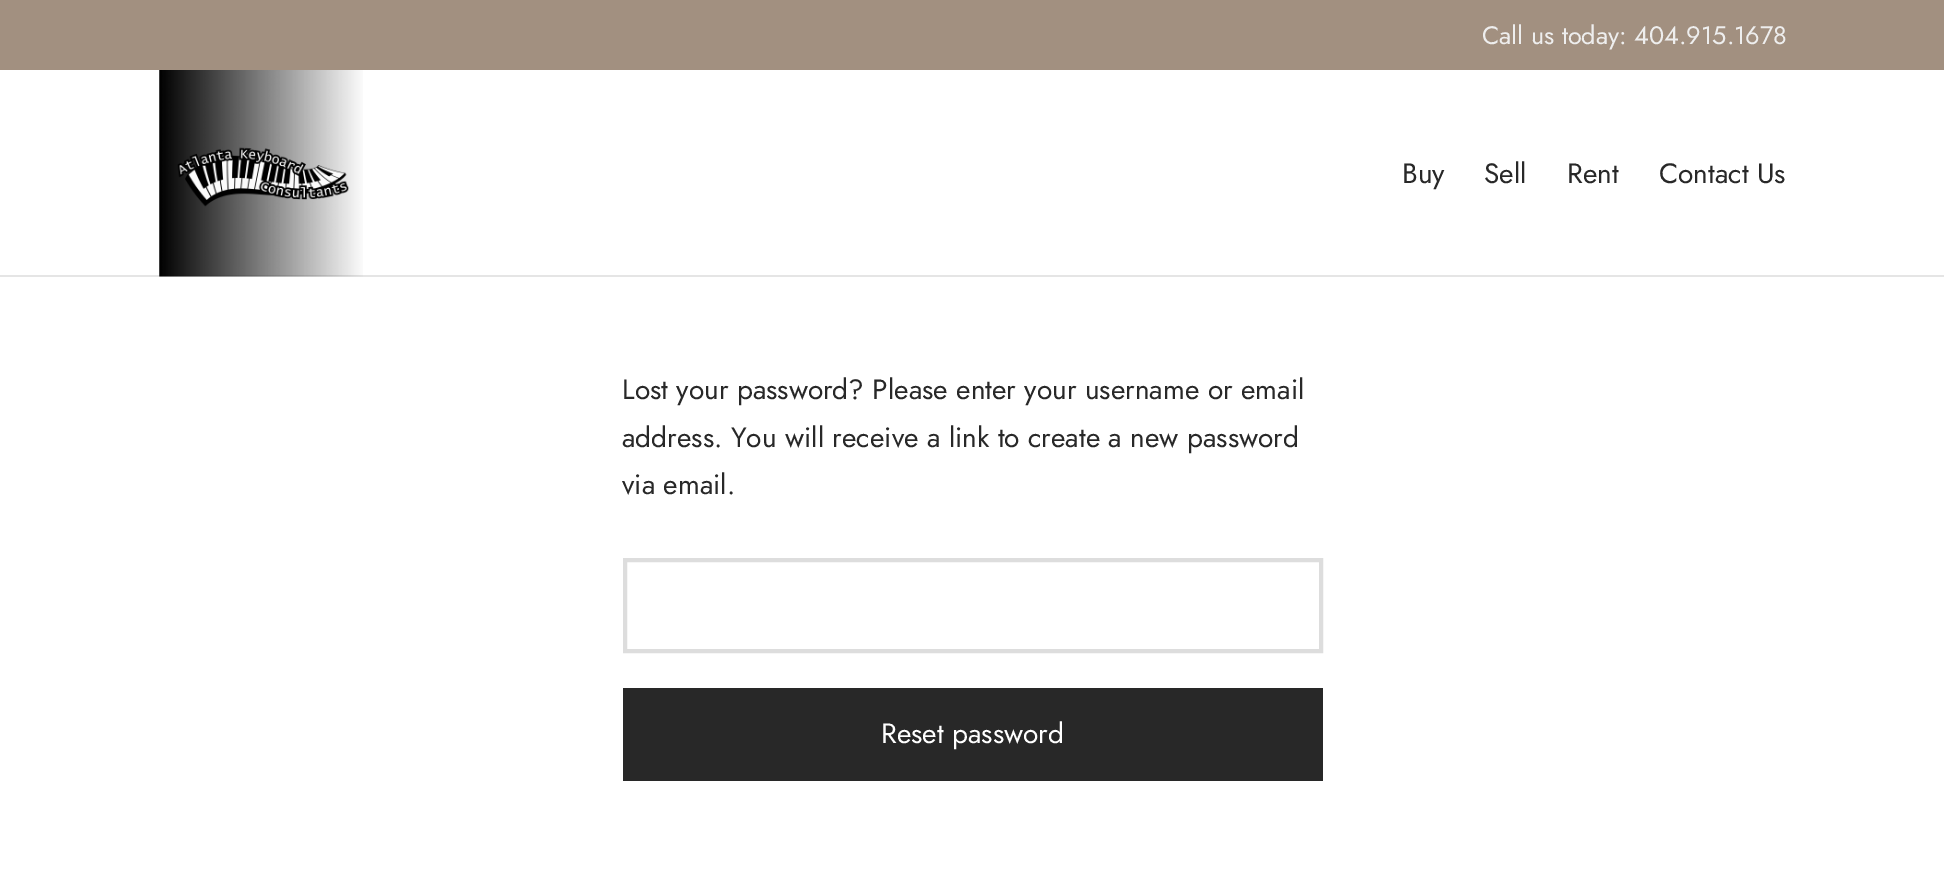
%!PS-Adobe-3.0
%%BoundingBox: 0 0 1944 880
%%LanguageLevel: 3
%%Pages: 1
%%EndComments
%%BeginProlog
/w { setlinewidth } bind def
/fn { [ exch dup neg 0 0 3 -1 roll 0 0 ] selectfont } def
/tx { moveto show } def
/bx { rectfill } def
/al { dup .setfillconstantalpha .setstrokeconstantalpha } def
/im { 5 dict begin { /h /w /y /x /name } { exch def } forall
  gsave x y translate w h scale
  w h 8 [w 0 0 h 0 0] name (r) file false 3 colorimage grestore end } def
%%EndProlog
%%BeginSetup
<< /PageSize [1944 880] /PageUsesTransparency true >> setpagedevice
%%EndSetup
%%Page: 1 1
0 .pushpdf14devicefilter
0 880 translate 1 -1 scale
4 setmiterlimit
1 setgray
0 0 1944 880 bx
0.635 0.565 0.502 setrgbcolor
0 0 1944 70 bx
/Jost-Regular 25.25 fn
0.933 setgray
(Call us today: 404.915.1678) 1482 44 tx
(image0.raw) 159 70 204 207 im
/Jost-Regular 28 fn
0.157 setgray
(Buy) 1402 183 tx
(Sell) 1484 183 tx
(Rent) 1567 183 tx
(Contact Us) 1659 183 tx
0.1 al
0 setgray
0 275 1944 2 bx
1 al
0.157 setgray
(Lost your password? Please enter your username or email) 622 399 tx
(address. You will receive a link to create a new password) 622 447 tx
(via email.) 622 494 tx
0.867 setgray
4 w
625 560 696 91 rectstroke
0.157 setgray
623 688 700 93 bx
1 setgray
(Reset password) 881 743 tx
.poppdf14devicefilter showpage
%%EOF
